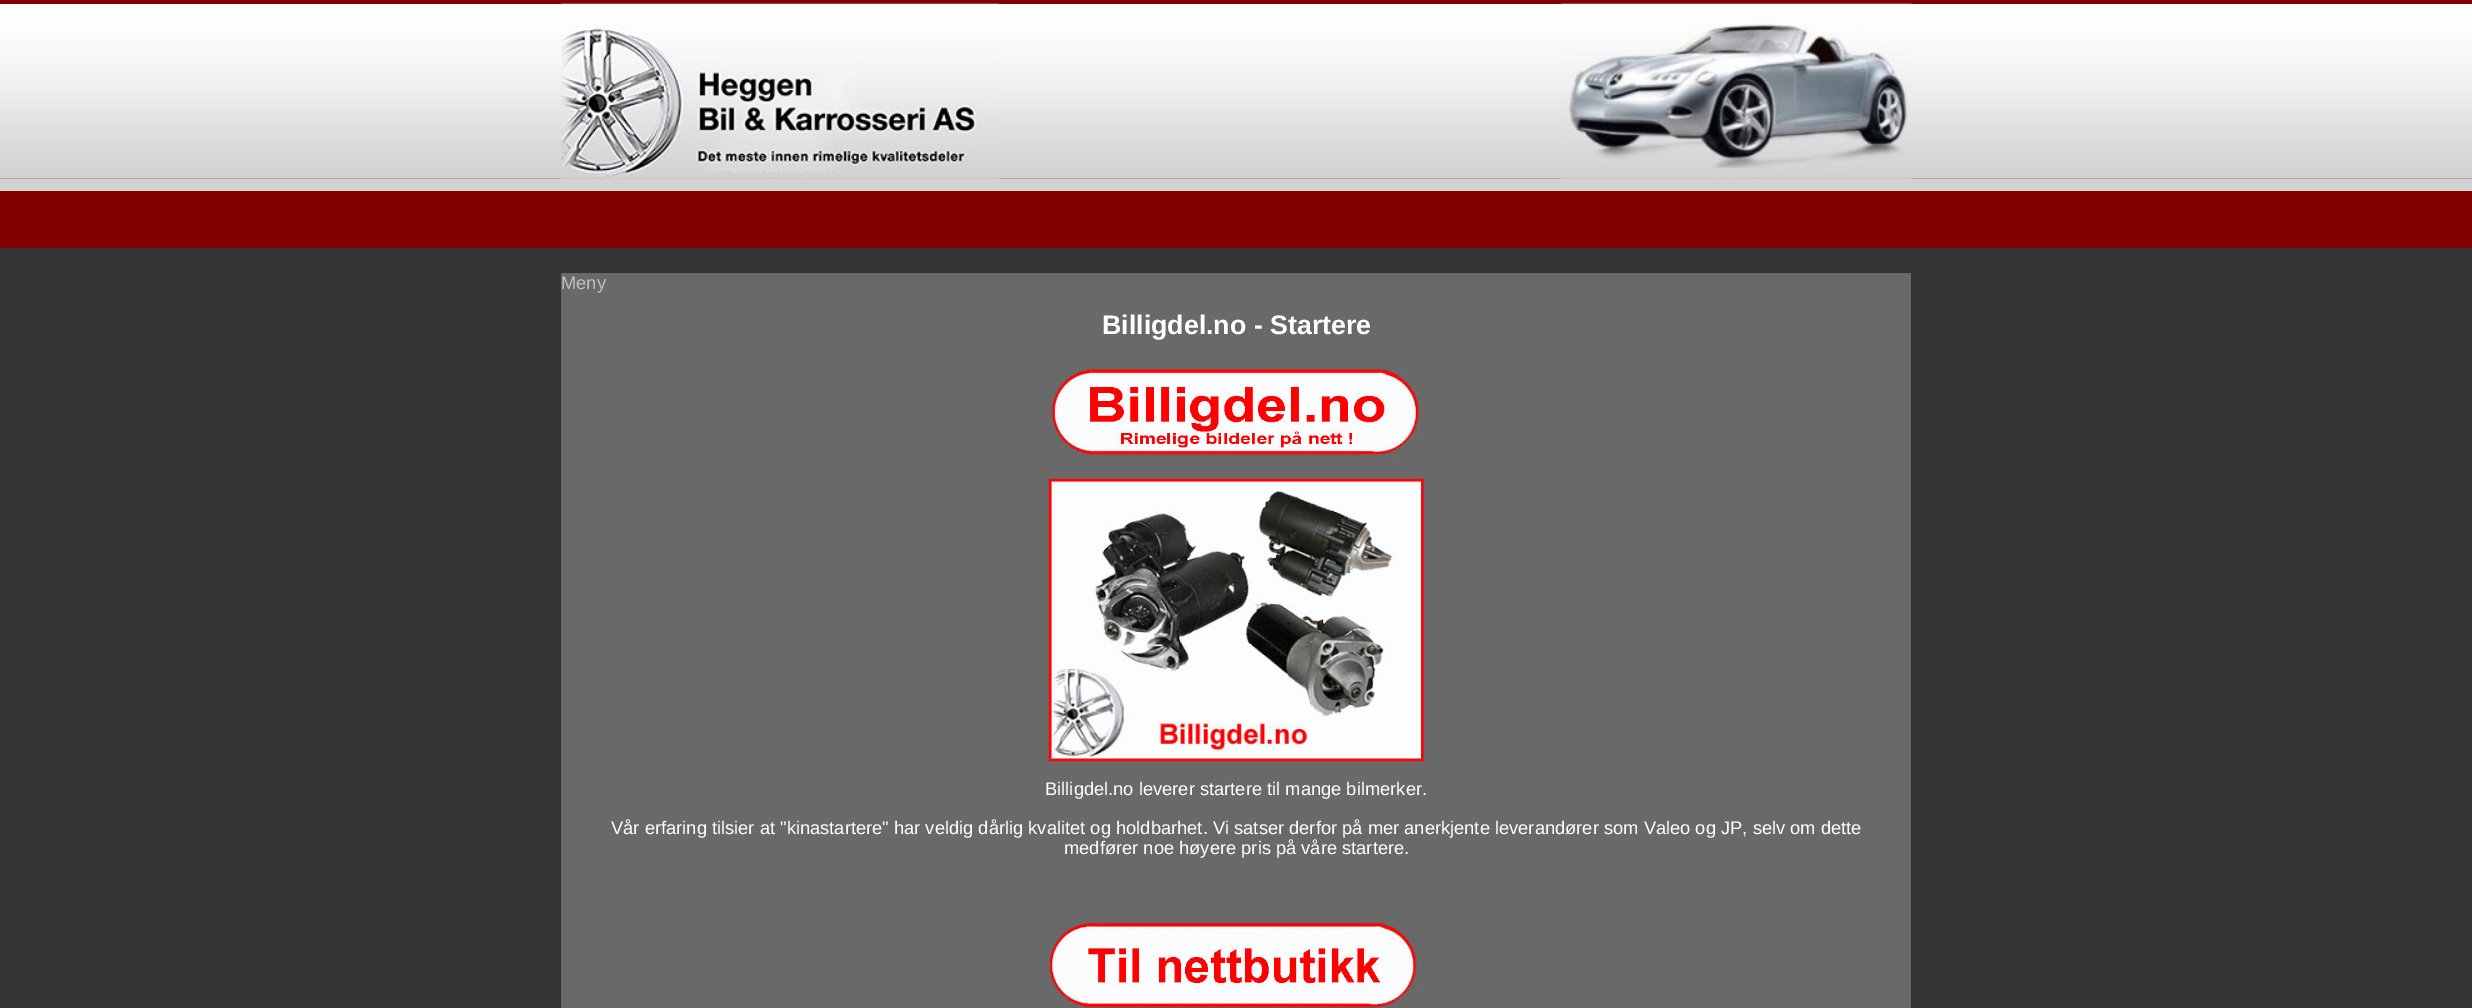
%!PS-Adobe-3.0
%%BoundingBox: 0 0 2472 1008
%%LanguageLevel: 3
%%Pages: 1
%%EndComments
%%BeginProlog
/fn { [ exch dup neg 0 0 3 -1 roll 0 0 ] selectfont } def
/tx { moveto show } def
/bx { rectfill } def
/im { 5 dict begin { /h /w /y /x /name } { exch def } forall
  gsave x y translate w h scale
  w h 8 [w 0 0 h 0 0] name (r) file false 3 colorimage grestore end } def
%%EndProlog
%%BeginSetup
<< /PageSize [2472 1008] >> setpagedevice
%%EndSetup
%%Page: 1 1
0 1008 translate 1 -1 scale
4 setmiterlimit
0.2 setgray
0 0 2472 1008 bx
(image0.raw) 0 4 2472 175 im
0.514 0 0 setrgbcolor
0 0 2472 4 bx
0.824 setgray
0 179 2472 12 bx
(image1.raw) 561 3 438 176 im
(image2.raw) 1561 3 351 176 im
0.514 0 0 setrgbcolor
0 191 2472 57 bx
0.412 setgray
561 273 1350 735 bx
/LiberationSans-Regular 18.33 fn
0.753 setgray
(Meny) 561 289 tx
/LiberationSans-Bold 26.75 fn
1 setgray
(Billigdel.no - Startere) 1102 334 tx
(image3.raw) 1049 365 375 94 im
(image4.raw) 1048 478 376 284 im
/LiberationSans-Regular 18.33 fn
(Billigdel.no leverer startere til mange bilmerker.) 1045 795 tx
(Vår erfaring tilsier at "kinastartere" har veldig dårlig kvalitet og holdbarhet. Vi satser derfor på mer anerkjente leverandører som Valeo og JP, selv om dette) 611 834 tx
(medfører noe høyere pris på våre startere.) 1064 854 tx
(image5.raw) 1046 919 375 89 im
showpage
%%EOF
